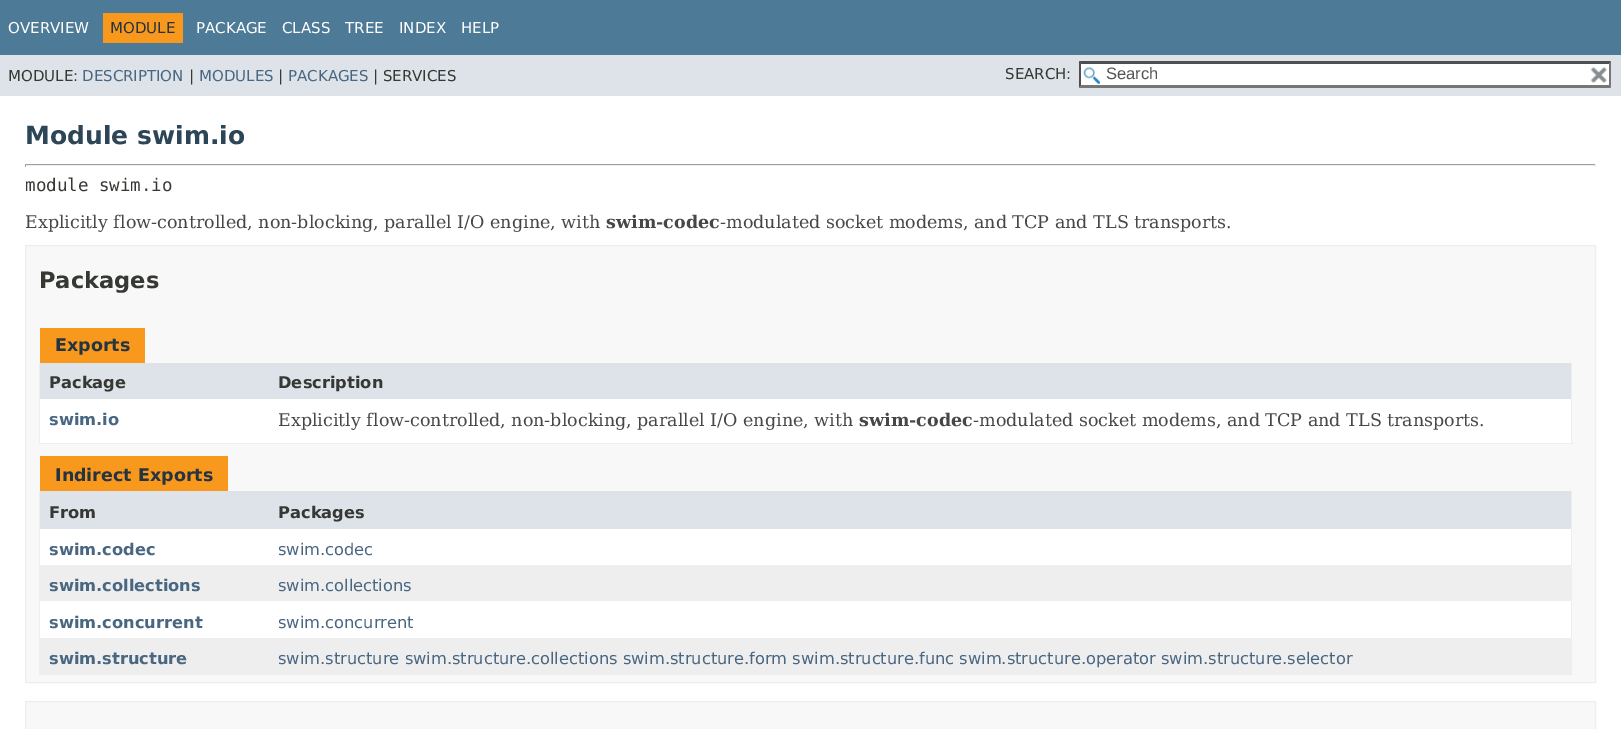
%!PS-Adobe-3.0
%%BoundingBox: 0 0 1621 729
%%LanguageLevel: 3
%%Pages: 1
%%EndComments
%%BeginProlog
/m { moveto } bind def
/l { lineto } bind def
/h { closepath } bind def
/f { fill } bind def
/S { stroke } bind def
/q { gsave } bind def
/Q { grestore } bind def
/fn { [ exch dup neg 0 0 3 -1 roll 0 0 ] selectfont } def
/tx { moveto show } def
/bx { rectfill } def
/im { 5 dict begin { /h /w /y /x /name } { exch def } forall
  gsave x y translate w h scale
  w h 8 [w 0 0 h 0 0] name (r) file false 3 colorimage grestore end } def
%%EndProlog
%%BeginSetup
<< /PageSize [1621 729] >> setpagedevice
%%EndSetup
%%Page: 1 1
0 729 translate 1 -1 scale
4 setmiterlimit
1 setgray
0 0 1621 729 bx
0.302 0.478 0.592 setrgbcolor
0 0 1621 55 bx
/DejaVuSans-Regular 15 fn
1 setgray
(OVERVIEW) 8 33 tx
0.973 0.596 0.114 setrgbcolor
103 13 80 30 bx
0.145 0.204 0.255 setrgbcolor
(MODULE) 110 33 tx
1 setgray
(PACKAGE) 196 33 tx
(CLASS) 282 33 tx
(TREE) 345 33 tx
(INDEX) 399 33 tx
(HELP) 461 33 tx
0.871 0.89 0.914 setrgbcolor
0 55 1621 41 bx
0.208 0.22 0.2 setrgbcolor
(MODULE:) 8 81 tx
0.29 0.404 0.51 setrgbcolor
(DESCRIPTION) 82 81 tx
0.208 0.22 0.2 setrgbcolor
(|) 189 81 tx
0.29 0.404 0.51 setrgbcolor
(MODULES) 199 81 tx
0.208 0.22 0.2 setrgbcolor
(|) 278 81 tx
0.29 0.404 0.51 setrgbcolor
(PACKAGES) 288 81 tx
0.208 0.22 0.2 setrgbcolor
(| SERVICES) 373 81 tx
(SEARCH:) 1005 79 tx
1 setgray
1079 61 532 27 bx
(image0.raw) 1083 67 17 17 im
0.31 setgray
1079 61 m 1611 61 l 1609 64 l 1081 64 l h f
0.463 setgray
1611 61 m 1611 87.5 l 1609 85 l 1609 64 l h f
1611 88 m 1079 88 l 1081 85 l 1609 85 l h f
0.31 setgray
1079 87.5 m 1079 61 l 1081 64 l 1081 85 l h f
/LiberationSans-Regular 16.5 fn
0.329 setgray
(Search) 1106 79 tx
(image1.raw) 1590 67 17 16 im
/DejaVuSans-Bold 25 fn
0.173 0.271 0.341 setrgbcolor
(Module swim.io) 25 144 tx
0.624 setgray
25 164 1571 1 bx
0.933 setgray
1595 164 1 3 bx
25 165 1571 1 bx
0.624 setgray
25 164 1 3 bx
/DejaVuSansMono-Regular 17.5 fn
0.208 0.22 0.2 setrgbcolor
(module swim.io) 25 191 tx
/DejaVuSerif-Regular 17.5 fn
0.278 setgray
(Explicitly flow-controlled, non-blocking, parallel I/O engine, with) 25 228 tx
/DejaVuSerif-Bold 17.5 fn
(swim-codec) 606 228 tx
/DejaVuSerif-Regular 17.5 fn
(-modulated socket modems, and TCP and TLS transports.) 720 228 tx
0.973 setgray
25.5 245.5 m 1595.5 245.5 l 1595.5 682.5 l 25.5 682.5 l h q f Q
0.929 setgray
S
/DejaVuSans-Bold 22.5 fn
0.208 0.22 0.2 setrgbcolor
(Packages) 39 288 tx
0.973 0.596 0.114 setrgbcolor
40 328 105 35 bx
/DejaVuSans-Bold 17.5 fn
0.145 0.204 0.255 setrgbcolor
(Exports) 55 351 tx
0.933 setgray
1571 363 1 81 bx
39 443 1534 1 bx
39 363 1 81 bx
0.871 0.89 0.914 setrgbcolor
40 363 1531 36 bx
/DejaVuSans-Bold 16.25 fn
0.208 0.22 0.2 setrgbcolor
(Package) 49 388 tx
(Description) 278 388 tx
1 setgray
40 399 1531 44 bx
0.29 0.404 0.51 setrgbcolor
(swim.io) 49 425 tx
/DejaVuSerif-Regular 17.5 fn
0.278 setgray
(Explicitly flow-controlled, non-blocking, parallel I/O engine, with) 278 426 tx
/DejaVuSerif-Bold 17.5 fn
(swim-codec) 859 426 tx
/DejaVuSerif-Regular 17.5 fn
(-modulated socket modems, and TCP and TLS transports.) 973 426 tx
0.973 0.596 0.114 setrgbcolor
40 456 188 35 bx
/DejaVuSans-Bold 17.5 fn
0.145 0.204 0.255 setrgbcolor
(Indirect Exports) 55 481 tx
0.933 setgray
1571 491 1 184 bx
39 674 1534 1 bx
39 491 1 184 bx
0.871 0.89 0.914 setrgbcolor
40 491 1531 38 bx
/DejaVuSans-Bold 16.25 fn
0.208 0.22 0.2 setrgbcolor
(From) 49 518 tx
(Packages) 278 518 tx
1 setgray
40 529 1531 36 bx
0.29 0.404 0.51 setrgbcolor
(swim.codec) 49 555 tx
/DejaVuSans-Regular 16.25 fn
(swim.codec) 278 555 tx
0.933 0.933 0.937 setrgbcolor
40 565 1531 36 bx
/DejaVuSans-Bold 16.25 fn
0.29 0.404 0.51 setrgbcolor
(swim.collections) 49 591 tx
/DejaVuSans-Regular 16.25 fn
(swim.collections) 278 591 tx
1 setgray
40 601 1531 37 bx
/DejaVuSans-Bold 16.25 fn
0.29 0.404 0.51 setrgbcolor
(swim.concurrent) 49 628 tx
/DejaVuSans-Regular 16.25 fn
(swim.concurrent) 278 628 tx
0.933 0.933 0.937 setrgbcolor
40 638 1531 36 bx
/DejaVuSans-Bold 16.25 fn
0.29 0.404 0.51 setrgbcolor
(swim.structure) 49 664 tx
/DejaVuSans-Regular 16.25 fn
(swim.structure swim.structure.collections swim.structure.form swim.structure.func swim.structure.operator swim.structure.selector) 278 664 tx
0.973 setgray
25.5 701.5 m 1595.5 701.5 l 1595.5 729.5 l 25.5 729.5 l h q f Q
0.929 setgray
S
showpage
%%EOF
